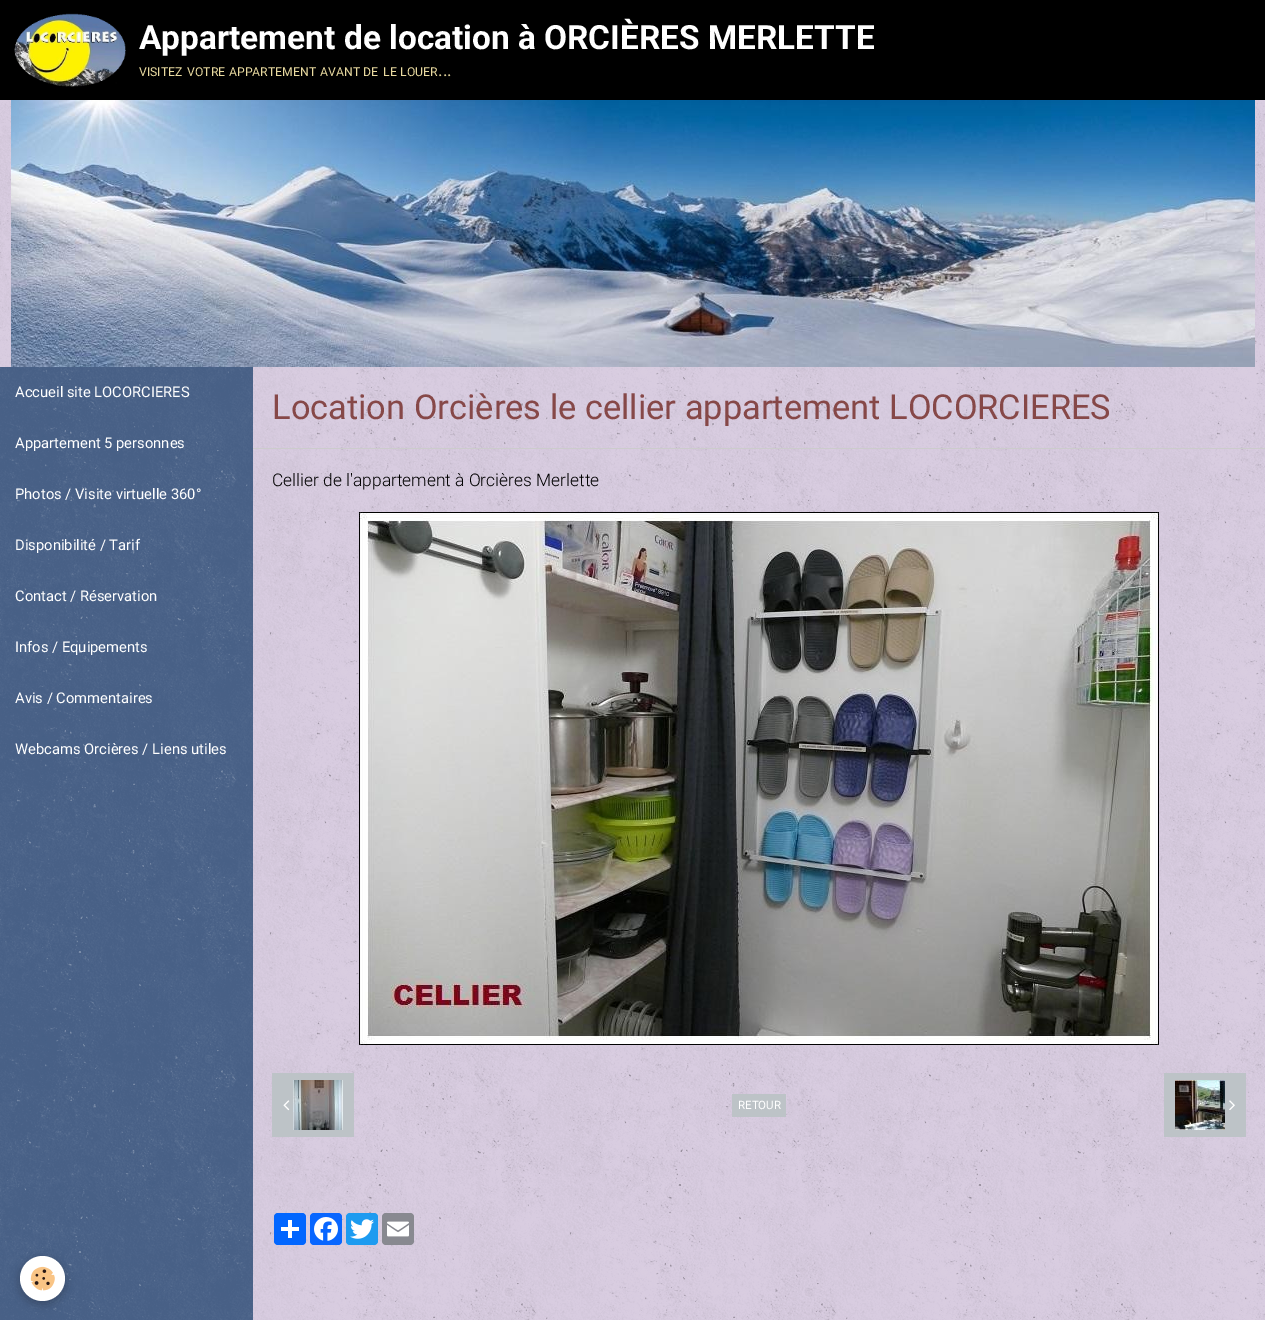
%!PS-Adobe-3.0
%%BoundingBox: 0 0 1265 1320
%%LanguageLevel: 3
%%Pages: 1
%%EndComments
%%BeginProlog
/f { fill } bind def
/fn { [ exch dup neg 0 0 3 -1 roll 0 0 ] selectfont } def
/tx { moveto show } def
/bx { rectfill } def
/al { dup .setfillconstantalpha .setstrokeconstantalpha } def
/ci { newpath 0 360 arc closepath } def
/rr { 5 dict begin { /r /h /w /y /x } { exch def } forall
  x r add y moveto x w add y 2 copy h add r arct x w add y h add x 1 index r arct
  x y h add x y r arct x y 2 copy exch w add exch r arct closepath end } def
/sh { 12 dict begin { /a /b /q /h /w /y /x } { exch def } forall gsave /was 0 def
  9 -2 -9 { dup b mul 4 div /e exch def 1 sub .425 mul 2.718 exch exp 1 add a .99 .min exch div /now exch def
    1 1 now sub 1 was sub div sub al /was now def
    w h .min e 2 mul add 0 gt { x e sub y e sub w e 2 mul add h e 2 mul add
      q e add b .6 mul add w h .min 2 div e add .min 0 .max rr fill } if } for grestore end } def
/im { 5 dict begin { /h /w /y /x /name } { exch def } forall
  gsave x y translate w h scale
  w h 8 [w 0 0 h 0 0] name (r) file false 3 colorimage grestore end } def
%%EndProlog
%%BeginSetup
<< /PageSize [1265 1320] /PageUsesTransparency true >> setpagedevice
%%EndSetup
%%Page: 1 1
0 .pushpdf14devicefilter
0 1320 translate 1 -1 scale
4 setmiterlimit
0.863 0.816 0.894 setrgbcolor
0 0 1265 1320 bx
(image0.raw) 0 100 1265 1220 im
0 setgray
0 0 1265 100 bx
(image1.raw) 14 13 112 74 im
/Roboto-Bold 33.4 fn
1 setgray
(Appartement de location à ORCIÈRES MERLETTE) 139 49 tx
/Roboto-Regular 12.25 fn
0.914 0.855 0.627 setrgbcolor
(VISITEZ) 139 76 tx
(VOTRE) 187 76 tx
(APPARTEMENT) 229 76 tx
(AVANT) 320 76 tx
(DE) 363 76 tx
(LE) 383 76 tx
(LOUER) 400 76 tx
/Roboto-Regular 17.4 fn
(...) 438 76 tx
(image2.raw) 11 100 1244 267 im
0.267 0.365 0.518 setrgbcolor
0 367 253 953 bx
(image3.raw) 0 367 253 953 im
/Roboto-Regular 14.75 fn
1 setgray
(Accueil site LOCORCIERES) 15 397 tx
(Appartement 5 personnes) 15 448 tx
(Photos / Visite virtuelle 360°) 15 499 tx
(Disponibilité / Tarif) 15 550 tx
(Contact / Réservation) 15 601 tx
(Infos / Equipements) 15 652 tx
(Avis / Commentaires) 15 703 tx
(Webcams Orcières / Liens utiles) 15 754 tx
0.8 setgray
253 448 1012 1 bx
/Roboto-Regular 34.4 fn
0.525 0.282 0.282 setrgbcolor
(Location Orcières le cellier appartement LOCORCIERES) 272 419 tx
/Roboto-Light 17.4 fn
0 setgray
(Cellier de l'appartement à Orcières Merlette) 272 486 tx
(image4.raw) 359 512 800 533 im
0.741 0.765 0.78 setrgbcolor
272 1073 82 64 bx
(image5.raw) 283 1100 7 11 im
(image6.raw) 293 1080 50 50 im
732 1094 54 23 bx
/Roboto-Regular 11.5 fn
1 setgray
(RETOUR) 738 1109 tx
0.741 0.765 0.78 setrgbcolor
1164 1073 82 64 bx
(image7.raw) 1175 1080 50 50 im
(image8.raw) 1229 1100 6 10 im
0.004 0.4 1 setrgbcolor
274 1213 32 32 4 rr f
1 setgray
288 1220 4 18 bx
281 1227 18 4 bx
0.031 0.4 1 setrgbcolor
310 1213 32 32 4 rr f
(image9.raw) 314 1217 24 24 im
0.114 0.608 0.941 setrgbcolor
346 1213 32 32 4 rr f
(image10.raw) 350 1219 24 20 im
0.533 0.537 0.565 setrgbcolor
382 1213 32 32 4 rr f
(image11.raw) 387 1221 22 16 im
0 setgray
20 1259 45 45 22.5 5 0.24 sh
1 setgray
42.5 1278.5 22.5 ci f
(image12.raw) 30 1266 25 25 im
.poppdf14devicefilter showpage
%%EOF
